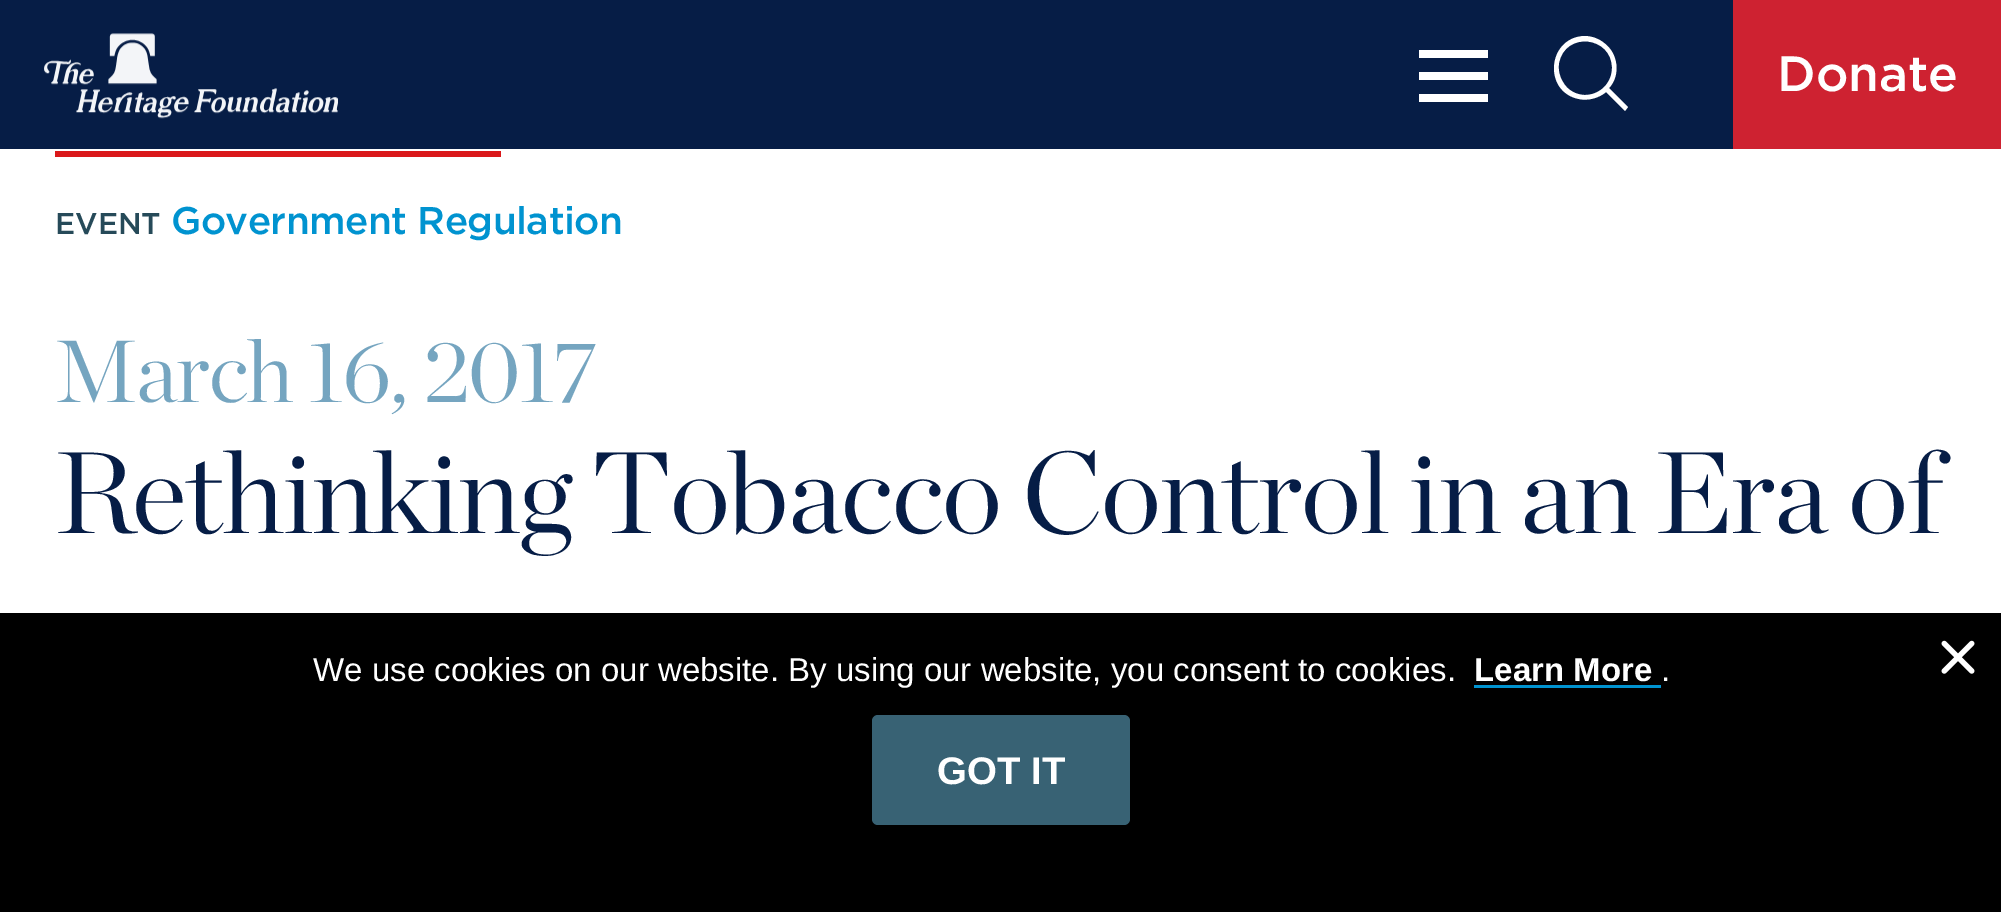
%!PS-Adobe-3.0
%%BoundingBox: 0 0 2001 912
%%LanguageLevel: 3
%%Pages: 1
%%EndComments
%%BeginProlog
/m { moveto } bind def
/l { lineto } bind def
/c { curveto } bind def
/h { closepath } bind def
/f { fill } bind def
/fn { [ exch dup neg 0 0 3 -1 roll 0 0 ] selectfont } def
/tx { moveto show } def
/bx { rectfill } def
/rr { 5 dict begin { /r /h /w /y /x } { exch def } forall
  x r add y moveto x w add y 2 copy h add r arct x w add y h add x 1 index r arct
  x y h add x y r arct x y 2 copy exch w add exch r arct closepath end } def
/im { 5 dict begin { /h /w /y /x /name } { exch def } forall
  gsave x y translate w h scale
  w h 8 [w 0 0 h 0 0] name (r) file false 3 colorimage grestore end } def
%%EndProlog
%%BeginSetup
<< /PageSize [2001 912] >> setpagedevice
%%EndSetup
%%Page: 1 1
0 912 translate 1 -1 scale
4 setmiterlimit
1 setgray
0 0 2001 912 bx
0.024 0.114 0.275 setrgbcolor
0 0 1733 149 bx
(image0.raw) 44 33 294 86 im
1 setgray
1419 50 69 8 bx
1419 72 69 8 bx
1419 94 69 8 bx
1628 107 m 1609 88 l 1621 75 1618 53 1604 43 c 1598 38 1591 36 1584 36 c 1547 38 1543 92 1579 99 c 1588 101 1599 98 1606 92 c 1625 111 l h 1585 95 m 1576 95 1567 90 1563 82 c 1559 76 1558 69 1559 63 c 1565 31 1612 36 1612 68 c 1612 83 1600 95 1585 95 c h f
0.808 0.133 0.192 setrgbcolor
1733 0 268 149 bx
/Gotham-Medium 49.5 fn
1 setgray
(Donate) 1777 91 tx
0.855 0.094 0.102 setrgbcolor
55 151 446 6 bx
/Gotham-Medium 30 fn
0.149 0.29 0.349 setrgbcolor
(EVENT) 55 234 tx
/Gotham-Medium 38.5 fn
0 0.576 0.816 setrgbcolor
171 234 m -0.55 0 (Government Regulation) ashow
/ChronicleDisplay-Light 88 fn
0.459 0.647 0.753 setrgbcolor
55 402 m -1.4 0 (March 16, 2017) ashow
/ChronicleDisplay-Light 115.5 fn
0.024 0.114 0.275 setrgbcolor
55 533 m -1.4 0 (Rethinking Tobacco Control in an Era of) ashow
0 setgray
0 613 2001 299 bx
/LiberationSans-Regular 33 fn
1 setgray
(We use cookies on our website. By using our website, you consent to cookies.) 313 681 tx
/LiberationSans-Bold 33 fn
(Learn More) 1474 681 tx
/LiberationSans-Regular 33 fn
(.) 1661 681 tx
0 0.576 0.816 setrgbcolor
1474 685 187 3 bx
0.22 0.384 0.455 setrgbcolor
872 715 258 110 6 rr f
/LiberationSans-Bold 38.5 fn
1 setgray
(GOT IT) 937 784 tx
(image1.raw) 1941 640 34 34 im
showpage
%%EOF
